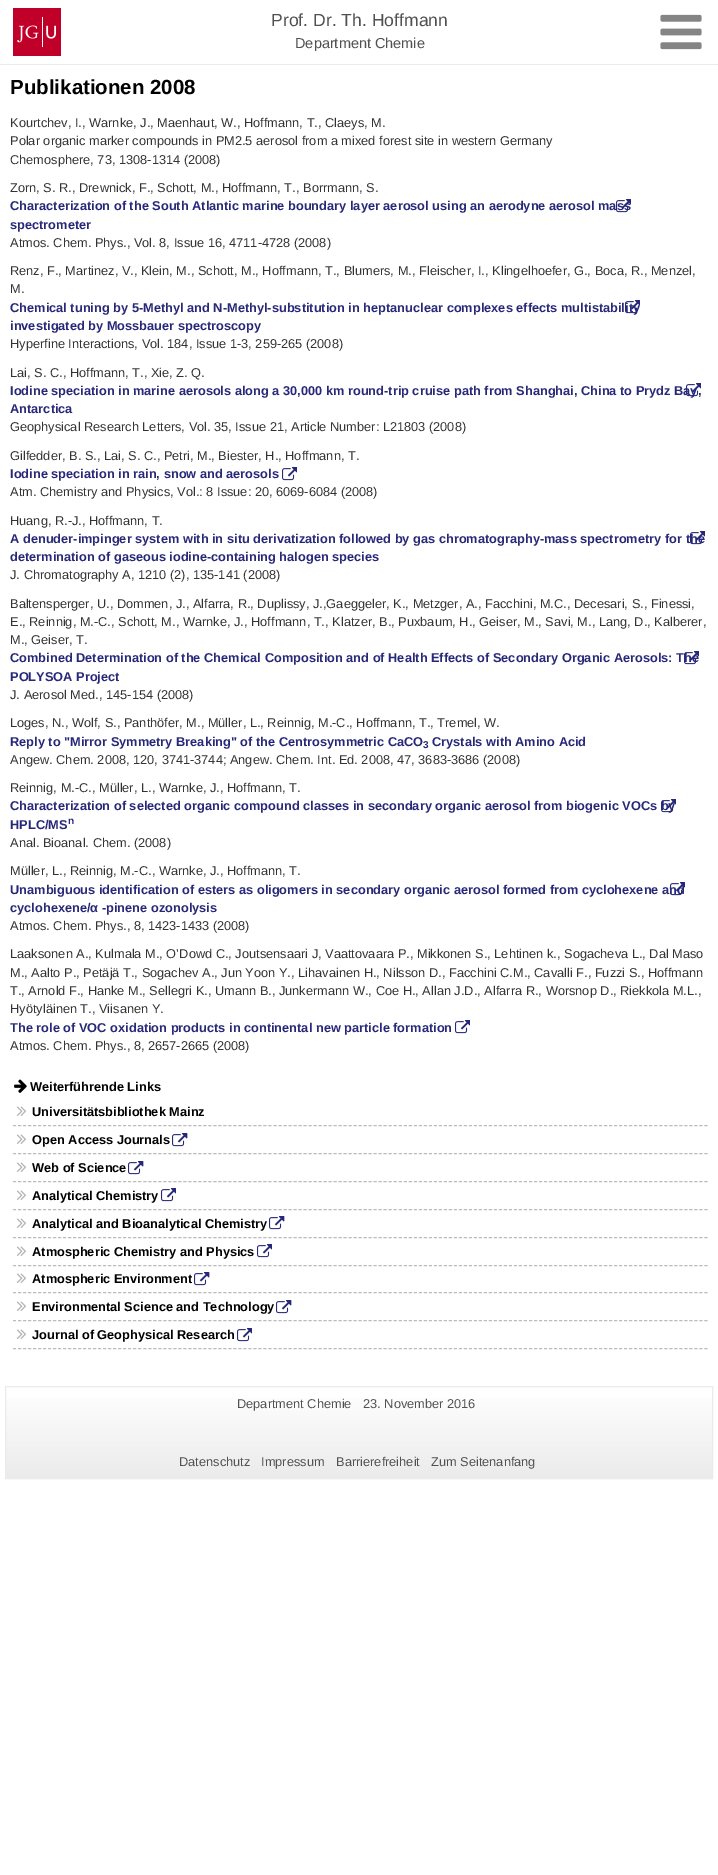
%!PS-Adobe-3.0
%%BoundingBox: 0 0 718 1875
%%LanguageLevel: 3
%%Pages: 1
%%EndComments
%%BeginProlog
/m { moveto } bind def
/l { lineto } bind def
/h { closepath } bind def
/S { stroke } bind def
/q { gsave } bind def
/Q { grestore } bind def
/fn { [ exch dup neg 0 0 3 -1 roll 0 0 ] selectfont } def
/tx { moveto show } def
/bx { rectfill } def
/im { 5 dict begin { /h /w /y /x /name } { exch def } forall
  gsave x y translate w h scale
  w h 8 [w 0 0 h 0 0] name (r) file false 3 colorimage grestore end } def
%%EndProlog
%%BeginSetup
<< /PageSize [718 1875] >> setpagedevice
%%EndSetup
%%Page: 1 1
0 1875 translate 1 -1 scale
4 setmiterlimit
1 setgray
0 0 718 1875 bx
0.922 setgray
0 64 718 1 bx
(image0.raw) 13 8 48 48 im
/LiberationSans-Regular 17.6 fn
0.318 setgray
(Prof. Dr. Th. Hoffmann) 271 26 tx
/LiberationSans-Regular 14.5 fn
(Department Chemie) 295 48 tx
(image1.raw) 660 14 42 36 im
/LiberationSans-Bold 20.5 fn
0 setgray
(Publikationen 2008) 10 94 tx
/LiberationSans-Regular 12.8 fn
0.2 setgray
(Kourtchev, I., Warnke, J., Maenhaut, W., Hoffmann, T., Claeys, M.) 10 127 tx
(Polar organic marker compounds in PM2.5 aerosol from a mixed forest site in western Germany) 10 145 tx
(Chemosphere, 73, 1308-1314 \(2008\)) 10 164 tx
(Zorn, S. R., Drewnick, F., Schott, M., Hoffmann, T., Borrmann, S.) 10 192 tx
(image2.raw) 616 199 15 14 im
/LiberationSans-Bold 12.8 fn
0.157 0.157 0.475 setrgbcolor
(Characterization of the South Atlantic marine boundary layer aerosol using an aerodyne aerosol mass) 10 210 tx
(spectrometer) 10 229 tx
/LiberationSans-Regular 12.8 fn
0.2 setgray
(Atmos. Chem. Phys., Vol. 8, Issue 16, 4711-4728 \(2008\)) 10 247 tx
(Renz, F., Martinez, V., Klein, M., Schott, M., Hoffmann, T., Blumers, M., Fleischer, I., Klingelhoefer, G., Boca, R., Menzel,) 10 275 tx
(M.) 10 293 tx
(image2.raw) 625 300 15 14 im
/LiberationSans-Bold 12.8 fn
0.157 0.157 0.475 setrgbcolor
(Chemical tuning by 5-Methyl and N-Methyl-substitution in heptanuclear complexes effects multistability) 10 312 tx
(investigated by Mossbauer spectroscopy) 10 330 tx
/LiberationSans-Regular 12.8 fn
0.2 setgray
(Hyperfine Interactions, Vol. 184, Issue 1-3, 259-265 \(2008\)) 10 348 tx
(Lai, S. C., Hoffmann, T., Xie, Z. Q.) 10 377 tx
(image2.raw) 686 383 15 14 im
/LiberationSans-Bold 12.8 fn
0.157 0.157 0.475 setrgbcolor
(Iodine speciation in marine aerosols along a 30,000 km round-trip cruise path from Shanghai, China to Prydz Bay,) 10 395 tx
(Antarctica) 10 413 tx
/LiberationSans-Regular 12.8 fn
0.2 setgray
(Geophysical Research Letters, Vol. 35, Issue 21, Article Number: L21803 \(2008\)) 10 431 tx
(Gilfedder, B. S., Lai, S. C., Petri, M., Biester, H., Hoffmann, T.) 10 460 tx
/LiberationSans-Bold 12.8 fn
0.157 0.157 0.475 setrgbcolor
(Iodine speciation in rain, snow and aerosols) 10 478 tx
(image2.raw) 282 467 15 14 im
/LiberationSans-Regular 12.8 fn
0.2 setgray
(Atm. Chemistry and Physics, Vol.: 8 Issue: 20, 6069-6084 \(2008\)) 10 496 tx
(Huang, R.-J., Hoffmann, T.) 10 525 tx
(image2.raw) 690 531 15 14 im
/LiberationSans-Bold 12.8 fn
0.157 0.157 0.475 setrgbcolor
(A denuder-impinger system with in situ derivatization followed by gas chromatography-mass spectrometry for the) 10 543 tx
(determination of gaseous iodine-containing halogen species) 10 561 tx
/LiberationSans-Regular 12.8 fn
0.2 setgray
(J. Chromatography A, 1210 \(2\), 135-141 \(2008\)) 10 579 tx
(Baltensperger, U., Dommen, J., Alfarra, R., Duplissy, J.,Gaeggeler, K., Metzger, A., Facchini, M.C., Decesari, S., Finessi,) 10 608 tx
(E., Reinnig, M.-C., Schott, M., Warnke, J., Hoffmann, T., Klatzer, B., Puxbaum, H., Geiser, M., Savi, M., Lang, D., Kalberer,) 10 626 tx
(M., Geiser, T.) 10 644 tx
(image2.raw) 684 651 15 14 im
/LiberationSans-Bold 12.8 fn
0.157 0.157 0.475 setrgbcolor
(Combined Determination of the Chemical Composition and of Health Effects of Secondary Organic Aerosols: The) 10 662 tx
(POLYSOA Project) 10 681 tx
/LiberationSans-Regular 12.8 fn
0.2 setgray
(J. Aerosol Med., 145-154 \(2008\)) 10 699 tx
(Loges, N., Wolf, S., Panthöfer, M., Müller, L., Reinnig, M.-C., Hoffmann, T., Tremel, W.) 10 727 tx
/LiberationSans-Bold 12.8 fn
0.157 0.157 0.475 setrgbcolor
(Reply to "Mirror Symmetry Breaking" of the Centrosymmetric CaCO) 10 746 tx
/LiberationSans-Bold 10 fn
(3) 423 748 tx
/LiberationSans-Bold 12.8 fn
(Crystals with Amino Acid) 432 746 tx
/LiberationSans-Regular 12.8 fn
0.2 setgray
(Angew. Chem. 2008, 120, 3741-3744; Angew. Chem. Int. Ed. 2008, 47, 3683-3686 \(2008\)) 10 764 tx
(Reinnig, M.-C., Müller, L., Warnke, J., Hoffmann, T.) 10 792 tx
(image2.raw) 661 799 15 14 im
/LiberationSans-Bold 12.8 fn
0.157 0.157 0.475 setrgbcolor
(Characterization of selected organic compound classes in secondary organic aerosol from biogenic VOCs by) 10 810 tx
(HPLC/MS) 10 829 tx
/LiberationSans-Bold 10 fn
(n) 68 824 tx
/LiberationSans-Regular 12.8 fn
0.2 setgray
(Anal. Bioanal. Chem. \(2008\)) 10 847 tx
(Müller, L., Reinnig, M.-C., Warnke, J., Hoffmann, T.) 10 875 tx
(image2.raw) 670 882 15 14 im
/LiberationSans-Bold 12.8 fn
0.157 0.157 0.475 setrgbcolor
(Unambiguous identification of esters as oligomers in secondary organic aerosol formed from cyclohexene and) 10 894 tx
(cyclohexene/α -pinene ozonolysis) 10 912 tx
/LiberationSans-Regular 12.8 fn
0.2 setgray
(Atmos. Chem. Phys., 8, 1423-1433 \(2008\)) 10 930 tx
(Laaksonen A., Kulmala M., O’Dowd C., Joutsensaari J, Vaattovaara P., Mikkonen S., Lehtinen k., Sogacheva L., Dal Maso) 10 958 tx
(M., Aalto P., Petäjä T., Sogachev A., Jun Yoon Y., Lihavainen H., Nilsson D., Facchini C.M., Cavalli F., Fuzzi S., Hoffmann) 10 977 tx
(T., Arnold F., Hanke M., Sellegri K., Umann B., Junkermann W., Coe H., Allan J.D., Alfarra R., Worsnop D., Riekkola M.L.,) 10 995 tx
(Hyötyläinen T., Viisanen Y.) 10 1013 tx
/LiberationSans-Bold 12.8 fn
0.157 0.157 0.475 setrgbcolor
(The role of VOC oxidation products in continental new particle formation) 10 1032 tx
(image2.raw) 455 1020 15 14 im
/LiberationSans-Regular 12.8 fn
0.2 setgray
(Atmos. Chem. Phys., 8, 2657-2665 \(2008\)) 10 1050 tx
(image3.raw) 14 1079 13 14 im
/LiberationSans-Bold 12.8 fn
0 setgray
(Weiterführende Links) 30 1091 tx
(image4.raw) 16 1106 10 10 im
0.737 setgray
[3 2.01] 0 setdash
13 1125.5 m 708 1125.5 l S
0 setgray
(Universitätsbibliothek Mainz) 32 1116 tx
(image4.raw) 16 1134 10 10 im
0.737 setgray
13 1153.5 m 708 1153.5 l S
0 setgray
(Open Access Journals) 32 1144 tx
(image5.raw) 172 1133 16 14 im
(image4.raw) 16 1162 10 10 im
0.737 setgray
13 1181.5 m 708 1181.5 l S
0 setgray
(Web of Science) 32 1172 tx
(image5.raw) 128 1161 16 14 im
(image4.raw) 16 1190 10 10 im
0.737 setgray
13 1209.5 m 708 1209.5 l S
0 setgray
(Analytical Chemistry) 32 1200 tx
(image2.raw) 161 1188 15 14 im
(image4.raw) 16 1218 10 10 im
0.737 setgray
13 1237.5 m 708 1237.5 l S
0 setgray
(Analytical and Bioanalytical Chemistry) 32 1228 tx
(image5.raw) 269 1216 16 14 im
(image4.raw) 16 1246 10 10 im
0.737 setgray
13 1265.5 m 708 1265.5 l S
0 setgray
(Atmospheric Chemistry and Physics) 32 1256 tx
(image2.raw) 257 1244 15 14 im
(image4.raw) 16 1273 10 10 im
0.737 setgray
13 1292.5 m 708 1292.5 l S
0 setgray
(Atmospheric Environment) 32 1283 tx
(image5.raw) 194 1272 16 14 im
(image4.raw) 16 1301 10 10 im
0.737 setgray
13 1320.5 m 708 1320.5 l S
0 setgray
(Environmental Science and Technology) 32 1311 tx
(image5.raw) 276 1300 16 14 im
(image4.raw) 16 1329 10 10 im
0.737 setgray
13 1348.5 m 708 1348.5 l S
0 setgray
(Journal of Geophysical Research) 32 1339 tx
(image2.raw) 237 1328 15 14 im
q 6 1398 m 712 1398 l 712 1478 l 6 1478 l h clip newpath
<< /ShadingType 2 /ColorSpace /DeviceRGB /Coords [359 1478 359 1387] /Extend [true true] /Function << /FunctionType 2 /Domain [0 1] /C0 [0.922 0.922 0.922] /C1 [1 1 1] /N 1 >> >> shfill Q
0.922 setgray
[] 0 setdash
5.5 1386.5 707 92 rectstroke
/LiberationSans-Regular 12.8 fn
0.318 setgray
(Department Chemie) 237 1408 tx
(23. November 2016) 363 1408 tx
(Datenschutz) 179 1466 tx
(Impressum) 261 1466 tx
(Barrierefreiheit) 336 1466 tx
(Zum Seitenanfang) 431 1466 tx
showpage
%%EOF
